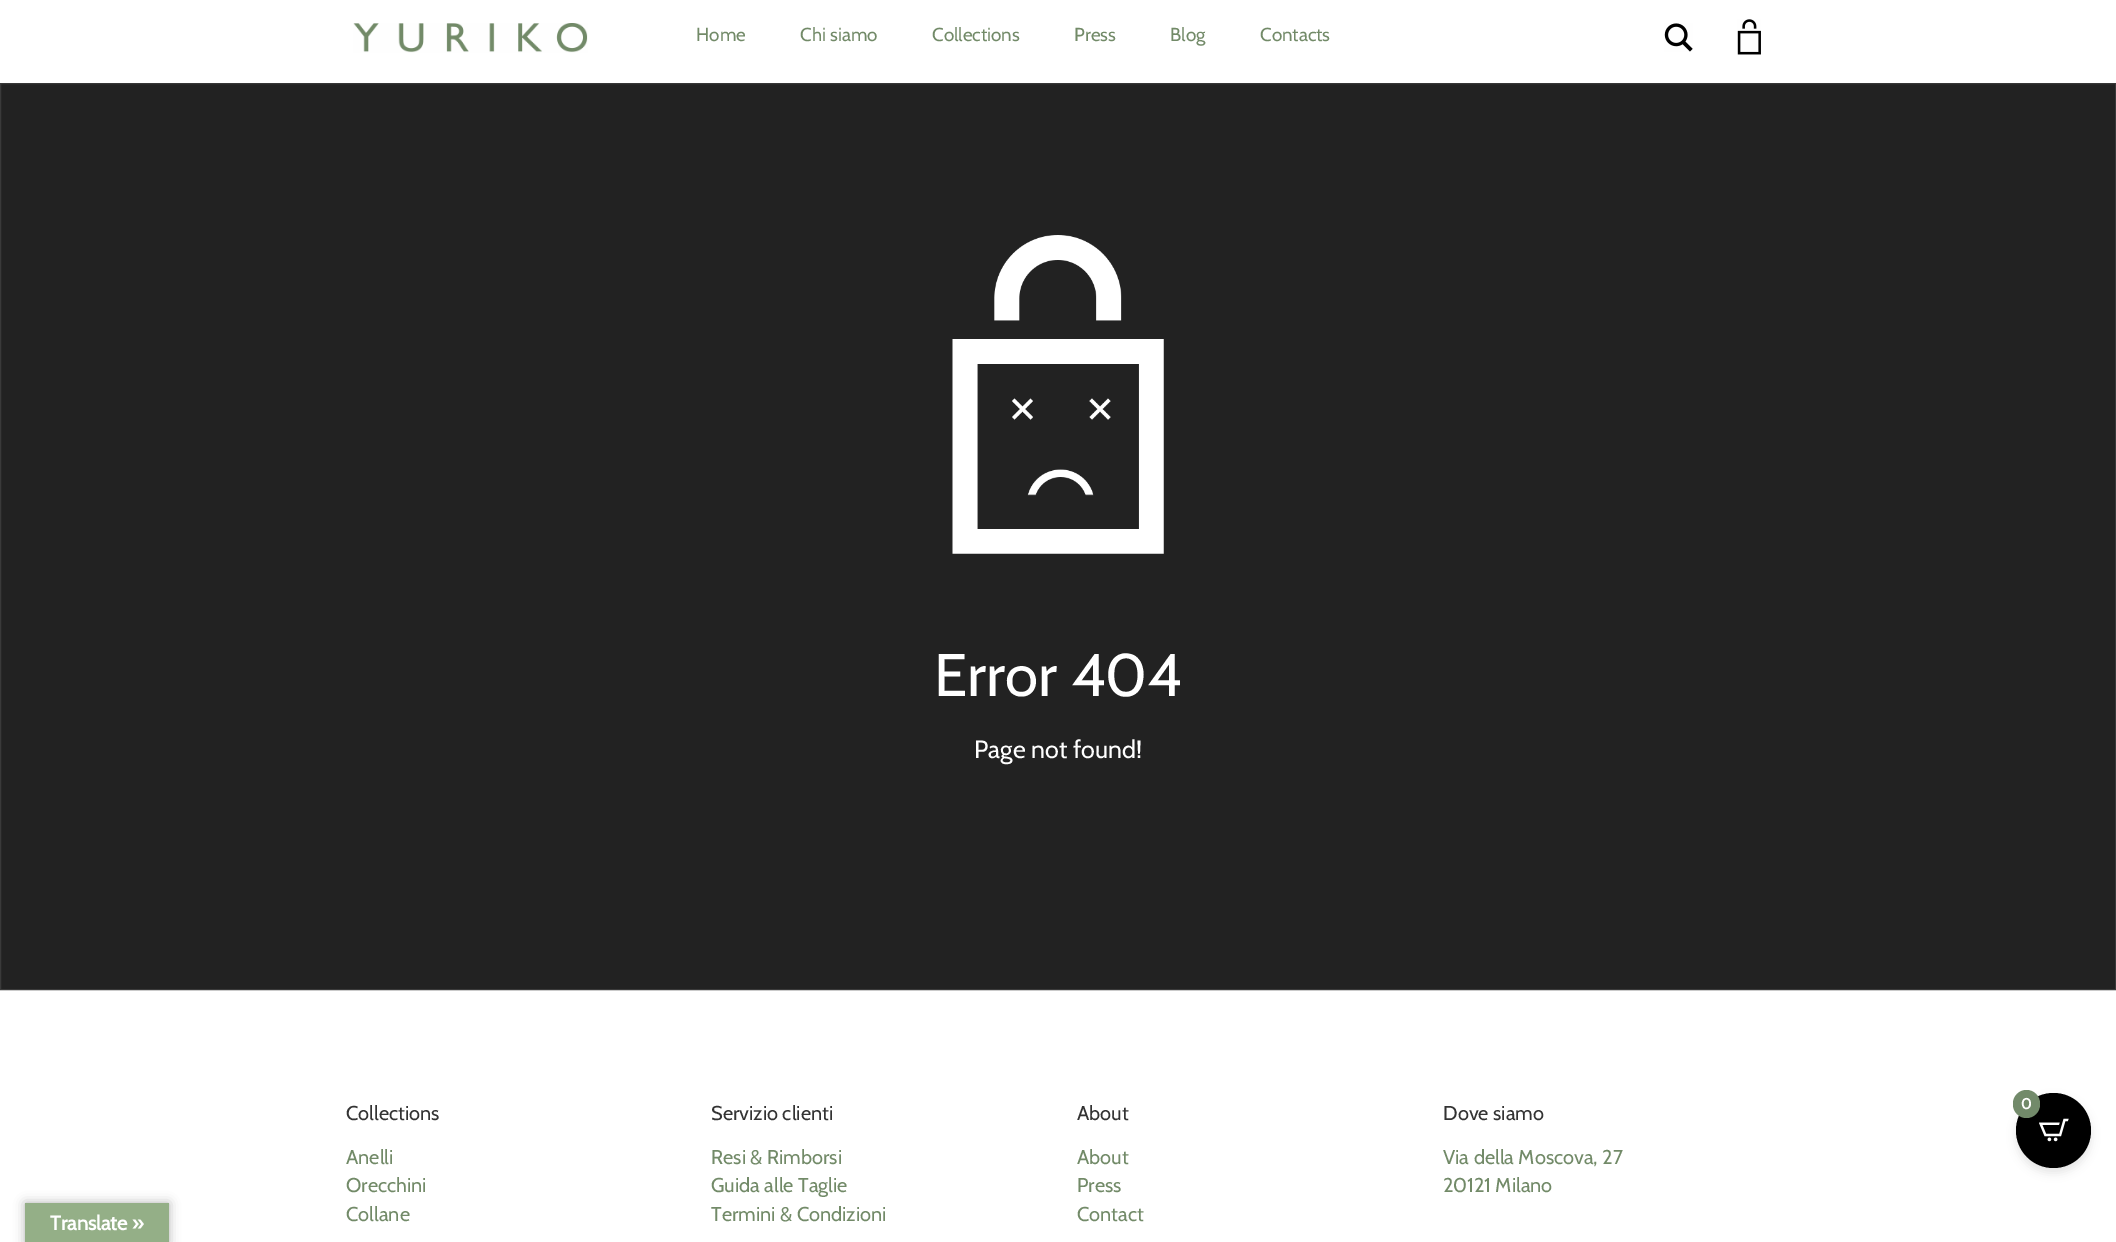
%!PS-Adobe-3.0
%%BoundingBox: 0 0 2116 1242
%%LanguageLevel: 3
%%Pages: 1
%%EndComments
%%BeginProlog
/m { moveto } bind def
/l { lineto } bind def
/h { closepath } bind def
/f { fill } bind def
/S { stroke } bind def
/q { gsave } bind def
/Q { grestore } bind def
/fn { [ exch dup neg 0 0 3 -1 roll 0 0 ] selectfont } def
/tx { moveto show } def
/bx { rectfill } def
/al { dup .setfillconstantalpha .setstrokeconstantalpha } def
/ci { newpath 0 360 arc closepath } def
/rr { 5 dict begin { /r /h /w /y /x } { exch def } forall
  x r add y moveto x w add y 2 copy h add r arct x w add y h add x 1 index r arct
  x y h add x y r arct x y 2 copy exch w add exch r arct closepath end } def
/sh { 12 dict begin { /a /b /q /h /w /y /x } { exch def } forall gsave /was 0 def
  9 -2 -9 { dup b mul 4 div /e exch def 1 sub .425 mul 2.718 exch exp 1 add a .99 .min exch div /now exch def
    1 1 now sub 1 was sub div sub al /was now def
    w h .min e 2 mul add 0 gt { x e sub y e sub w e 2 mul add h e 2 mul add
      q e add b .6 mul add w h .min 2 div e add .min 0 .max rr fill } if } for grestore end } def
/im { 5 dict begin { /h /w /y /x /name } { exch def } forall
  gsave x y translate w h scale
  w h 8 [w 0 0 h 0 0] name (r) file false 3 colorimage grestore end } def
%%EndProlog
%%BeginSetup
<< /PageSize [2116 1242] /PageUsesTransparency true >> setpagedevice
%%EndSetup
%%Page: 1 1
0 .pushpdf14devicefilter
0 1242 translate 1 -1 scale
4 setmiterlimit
1 setgray
0 0 2116 1242 bx
0.133 setgray
0.5 83.5 m 2115.5 83.5 l 2115.5 989.5 l 0.5 989.5 l h q f Q
0.227 setgray
S
0.05 al
0 setgray
0 83 2116 1 bx
1 al
(image0.raw) 353 23 235 30 im
/Cabin-Regular 18.75 fn
0.447 0.541 0.408 setrgbcolor
(Home) 696 41 tx
(Chi siamo) 800 41 tx
(Collections) 932 41 tx
(Press) 1074 41 tx
(Blog) 1170 41 tx
(Contacts) 1260 41 tx
(image1.raw) 1664 23 29 29 im
(image2.raw) 1737 19 24 36 im
(image3.raw) 952 235 212 319 im
/Cabin-Regular 60 fn
1 setgray
(Error 404) 934 696 tx
/Cabin-Regular 25 fn
(Page not found!) 974 758 tx
0 setgray
25 1203 144 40 0 5.5 0.3 sh
0.58 0.686 0.529 setrgbcolor
25 1203 144 39 bx
/Cabin-Bold 20 fn
1 setgray
(Translate ») 50 1230 tx
/Cabin-Regular 20 fn
0.2 setgray
(Collections) 346 1120 tx
0.447 0.541 0.408 setrgbcolor
(Anelli) 346 1164 tx
(Orecchini) 346 1192 tx
(Collane) 346 1221 tx
0.2 setgray
(Servizio clienti) 711 1120 tx
0.447 0.541 0.408 setrgbcolor
(Resi & Rimborsi) 711 1164 tx
(Guida alle Taglie) 711 1192 tx
(Termini & Condizioni) 711 1221 tx
0.2 setgray
(About) 1077 1120 tx
0.447 0.541 0.408 setrgbcolor
(About) 1077 1164 tx
(Press) 1077 1192 tx
(Contact) 1077 1221 tx
0.2 setgray
(Dove siamo) 1443 1120 tx
0.447 0.541 0.408 setrgbcolor
(Via della Moscova, 27) 1443 1164 tx
(20121 Milano) 1443 1192 tx
0 setgray
2016 1098 75 75 37.5 4.5 0.1 sh
2053.5 1130.5 37.5 ci f
0.447 0.541 0.416 setrgbcolor
2013 1090 27 28 13.5 rr f
/Cabin-Bold 15 fn
1 setgray
(0) 2021 1109 tx
(image4.raw) 2039 1118 30 24 im
.poppdf14devicefilter showpage
%%EOF
